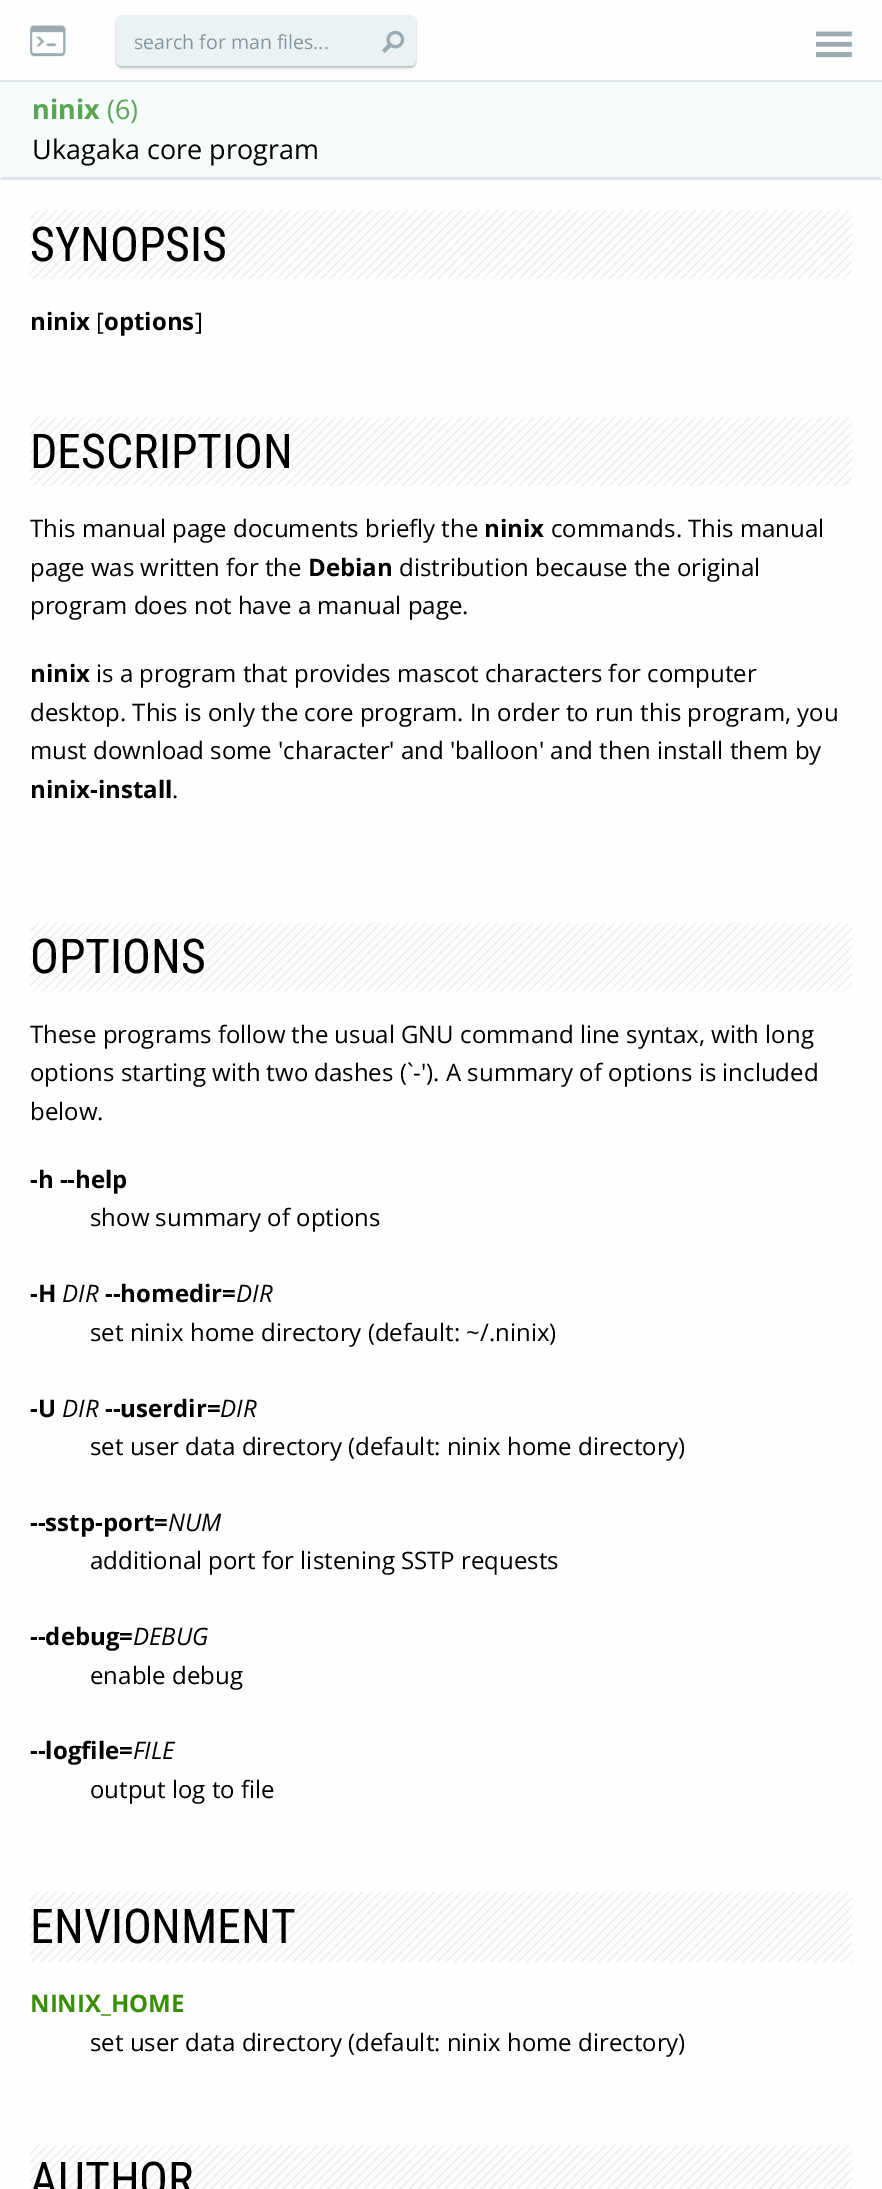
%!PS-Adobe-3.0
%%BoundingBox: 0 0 882 2189
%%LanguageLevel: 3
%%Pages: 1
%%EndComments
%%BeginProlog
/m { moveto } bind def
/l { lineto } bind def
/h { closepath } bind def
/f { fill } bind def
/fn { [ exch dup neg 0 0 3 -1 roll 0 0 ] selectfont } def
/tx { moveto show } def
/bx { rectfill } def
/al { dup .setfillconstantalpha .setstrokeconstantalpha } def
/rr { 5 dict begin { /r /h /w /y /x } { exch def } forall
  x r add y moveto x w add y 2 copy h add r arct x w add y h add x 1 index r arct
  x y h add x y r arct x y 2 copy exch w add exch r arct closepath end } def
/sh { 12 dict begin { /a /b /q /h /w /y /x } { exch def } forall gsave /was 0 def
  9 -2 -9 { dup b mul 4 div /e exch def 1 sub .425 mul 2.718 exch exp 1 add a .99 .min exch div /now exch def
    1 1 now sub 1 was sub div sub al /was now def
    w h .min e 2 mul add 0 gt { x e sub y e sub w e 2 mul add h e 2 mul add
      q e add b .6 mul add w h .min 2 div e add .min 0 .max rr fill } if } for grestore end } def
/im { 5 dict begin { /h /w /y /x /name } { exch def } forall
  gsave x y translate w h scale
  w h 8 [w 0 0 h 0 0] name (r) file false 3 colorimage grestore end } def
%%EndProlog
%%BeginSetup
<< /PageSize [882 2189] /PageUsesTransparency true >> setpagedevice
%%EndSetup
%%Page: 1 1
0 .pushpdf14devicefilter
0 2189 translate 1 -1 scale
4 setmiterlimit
0.996 setgray
0 0 882 2189 bx
0.863 0.898 0.906 setrgbcolor
0 80 882 2 bx
(image0.raw) 30 25 36 32 im
0.024 0.184 0.216 setrgbcolor
116 17 300 51 6 1 0.3 sh
0.918 0.949 0.957 setrgbcolor
116 15 300 51 6 rr f
/OpenSans-Regular 19.5 fn
0.525 0.588 0.616 setrgbcolor
(search for man files...) 134 49 tx
(image1.raw) 382 30 23 23 im
(image2.raw) 816 31 36 27 im
0.965 0.984 0.988 setrgbcolor
0 82 882 98 bx
0.875 0.89 0.914 setrgbcolor
882 180 m 0 180 l 2 177 l 880 177 l h f
/OpenSans-Bold 27 fn
0.349 0.647 0.322 setrgbcolor
(ninix) 32 119 tx
/OpenSans-Regular 27 fn
(\(6\)) 107 119 tx
0 setgray
(Ukagaka core program) 32 159 tx
(image3.raw) 30 210 822 69 im
/RobotoCondensed-Regular 48 fn
(SYNOPSIS) 30 261 tx
/OpenSans-Bold 24 fn
(ninix) 30 330 tx
/OpenSans-Regular 24 fn
([) 96 330 tx
/OpenSans-Bold 24 fn
(options) 104 330 tx
/OpenSans-Regular 24 fn
(]) 195 330 tx
(image3.raw) 30 417 822 69 im
/RobotoCondensed-Regular 48 fn
(DESCRIPTION) 30 468 tx
/OpenSans-Regular 24 fn
(This manual page documents briefly the) 30 537 tx
/OpenSans-Bold 24 fn
(ninix) 484 537 tx
/OpenSans-Regular 24 fn
(commands. This manual) 551 537 tx
(page was written for the) 30 576 tx
/OpenSans-Bold 24 fn
(Debian) 308 576 tx
/OpenSans-Regular 24 fn
(distribution because the original) 399 576 tx
(program does not have a manual page.) 30 614 tx
/OpenSans-Bold 24 fn
(ninix) 30 682 tx
/OpenSans-Regular 24 fn
(is a program that provides mascot characters for computer) 96 682 tx
(desktop. This is only the core program. In order to run this program, you) 30 721 tx
(must download some 'character' and 'balloon' and then install them by) 30 759 tx
/OpenSans-Bold 24 fn
(ninix-install) 30 798 tx
/OpenSans-Regular 24 fn
(.) 172 798 tx
(image4.raw) 30 923 822 69 im
/RobotoCondensed-Regular 48 fn
(OPTIONS) 30 973 tx
/OpenSans-Regular 24 fn
(These programs follow the usual GNU command line syntax, with long) 30 1043 tx
(options starting with two dashes \(`-'\). A summary of options is included) 30 1081 tx
(below.) 30 1120 tx
/OpenSans-Bold 24 fn
(-h --help) 30 1188 tx
/OpenSans-Regular 24 fn
(show summary of options) 90 1226 tx
/OpenSans-Bold 24 fn
(-H) 30 1302 tx
/OpenSans-Italic 24 fn
(DIR) 62 1302 tx
/OpenSans-Bold 24 fn
(--homedir=) 105 1302 tx
/OpenSans-Italic 24 fn
(DIR) 236 1302 tx
/OpenSans-Regular 24 fn
(set ninix home directory \(default: ~/.ninix\)) 90 1341 tx
/OpenSans-Bold 24 fn
(-U) 30 1417 tx
/OpenSans-Italic 24 fn
(DIR) 62 1417 tx
/OpenSans-Bold 24 fn
(--userdir=) 105 1417 tx
/OpenSans-Italic 24 fn
(DIR) 220 1417 tx
/OpenSans-Regular 24 fn
(set user data directory \(default: ninix home directory\)) 90 1455 tx
/OpenSans-Bold 24 fn
(--sstp-port=) 30 1531 tx
/OpenSans-Italic 24 fn
(NUM) 168 1531 tx
/OpenSans-Regular 24 fn
(additional port for listening SSTP requests) 90 1569 tx
/OpenSans-Bold 24 fn
(--debug=) 30 1645 tx
/OpenSans-Italic 24 fn
(DEBUG) 133 1645 tx
/OpenSans-Regular 24 fn
(enable debug) 90 1684 tx
/OpenSans-Bold 24 fn
(--logfile=) 30 1759 tx
/OpenSans-Italic 24 fn
(FILE) 133 1759 tx
/OpenSans-Regular 24 fn
(output log to file) 90 1798 tx
(image5.raw) 30 1892 822 70 im
/RobotoCondensed-Regular 48 fn
(ENVIONMENT) 30 1943 tx
/OpenSans-Bold 24 fn
0.22 0.557 0.024 setrgbcolor
(NINIX_HOME) 30 2012 tx
/OpenSans-Regular 24 fn
0 setgray
(set user data directory \(default: ninix home directory\)) 90 2051 tx
(image6.raw) 30 2145 822 44 im
/RobotoCondensed-Regular 48 fn
(AUTHOR) 30 2196 tx
.poppdf14devicefilter showpage
%%EOF
